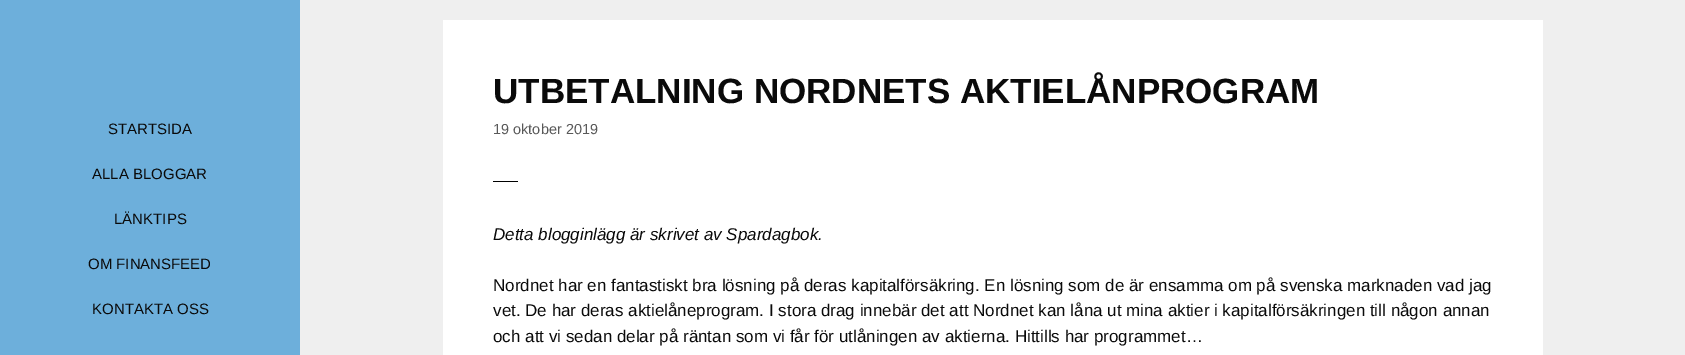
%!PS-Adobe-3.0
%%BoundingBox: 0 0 1685 355
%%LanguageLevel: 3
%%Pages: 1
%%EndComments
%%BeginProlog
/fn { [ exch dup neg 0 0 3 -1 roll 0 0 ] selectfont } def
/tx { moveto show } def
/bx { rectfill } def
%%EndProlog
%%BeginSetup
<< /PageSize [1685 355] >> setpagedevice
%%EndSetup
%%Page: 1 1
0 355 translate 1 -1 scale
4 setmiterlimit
0.937 setgray
0 0 1685 355 bx
0.427 0.686 0.859 setrgbcolor
0 0 300 355 bx
/Arimo-Regular 15 fn
0.039 setgray
(STARTSIDA) 108 134 tx
(ALLA BLOGGAR) 92 179 tx
(LÄNKTIPS) 114 224 tx
(OM FINANSFEED) 88 269 tx
(KONTAKTA OSS) 92 314 tx
1 setgray
443 20 1100 335 bx
/Arimo-Bold 35 fn
0.039 setgray
(UTBETALNING NORDNETS AKTIELÅNPROGRAM) 493 103 tx
/Arimo-Regular 14.5 fn
0.349 setgray
(19 oktober 2019) 493 134 tx
0 setgray
493 181 25 1 bx
/Arimo-Italic 17 fn
0.039 setgray
(Detta blogginlägg är skrivet av Spardagbok.) 493 240 tx
/Arimo-Regular 17 fn
(Nordnet har en fantastiskt bra lösning på deras kapitalförsäkring. En lösning som de är ensamma om på svenska marknaden vad jag) 493 291 tx
(vet. De har deras aktielåneprogram. I stora drag innebär det att Nordnet kan låna ut mina aktier i kapitalförsäkringen till någon annan) 493 316 tx
(och att vi sedan delar på räntan som vi får för utlåningen av aktierna. Hittills har programmet…) 493 342 tx
showpage
%%EOF
